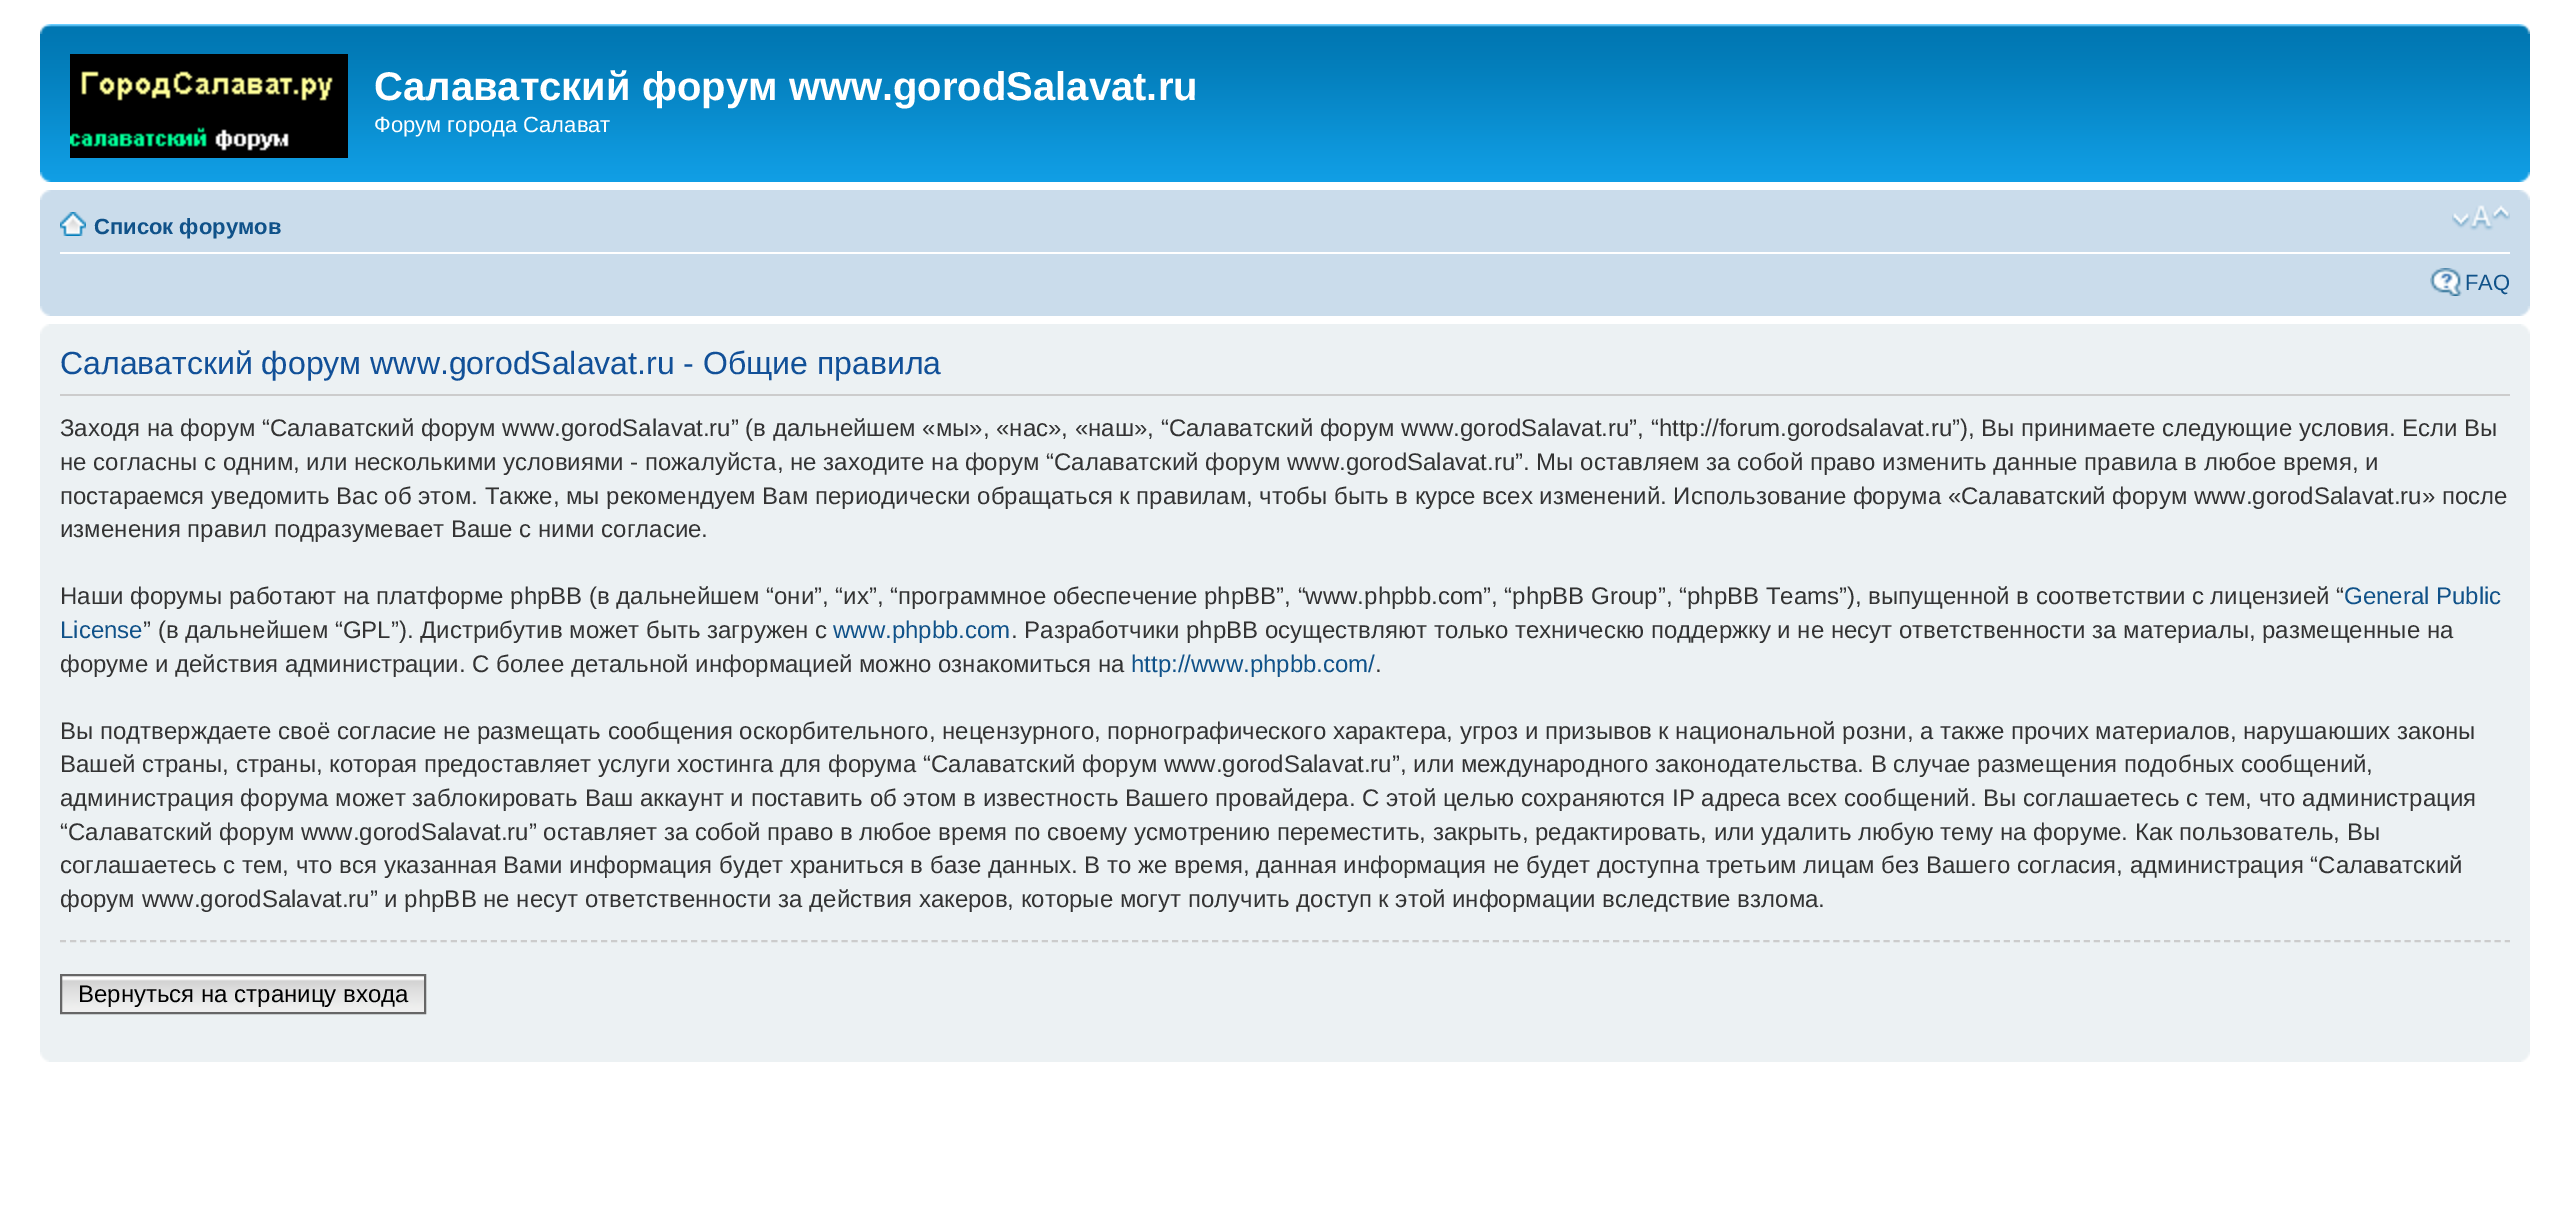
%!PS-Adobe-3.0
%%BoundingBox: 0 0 2570 1210
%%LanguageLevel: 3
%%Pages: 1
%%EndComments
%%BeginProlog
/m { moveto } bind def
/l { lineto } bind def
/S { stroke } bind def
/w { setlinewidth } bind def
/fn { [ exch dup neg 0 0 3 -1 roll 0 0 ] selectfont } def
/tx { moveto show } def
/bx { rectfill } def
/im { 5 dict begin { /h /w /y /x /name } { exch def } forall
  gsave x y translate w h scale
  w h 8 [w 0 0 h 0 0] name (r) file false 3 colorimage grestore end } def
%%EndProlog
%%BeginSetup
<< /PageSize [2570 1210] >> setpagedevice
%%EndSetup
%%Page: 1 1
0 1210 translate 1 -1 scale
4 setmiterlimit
1 setgray
0 0 2570 1210 bx
(image0.raw) 40 24 2490 158 im
(image1.raw) 40 24 11 10 im
(image2.raw) 2519 24 11 10 im
(image3.raw) 70 54 278 104 im
/LiberationSans-Bold 40 fn
(Салаватский форум www.gorodSalavat.ru) 374 100 tx
/LiberationSans-Regular 22 fn
(Форум города Салават) 374 132 tx
(image4.raw) 40 172 11 10 im
(image5.raw) 2519 172 11 10 im
0.792 0.863 0.922 setrgbcolor
40 190 2490 126 bx
(image6.raw) 40 190 11 10 im
(image7.raw) 2519 190 11 10 im
1 setgray
60 252 2450 2 bx
(image8.raw) 60 212 26 24 im
/LiberationSans-Bold 22 fn
0.063 0.322 0.537 setrgbcolor
(Список форумов) 94 234 tx
(image9.raw) 2452 205 58 26 im
(image10.raw) 2430 268 32 28 im
/LiberationSans-Regular 22 fn
(FAQ) 2465 290 tx
(image11.raw) 40 306 10 10 im
(image12.raw) 2520 306 10 10 im
0.925 0.945 0.953 setrgbcolor
40 324 2490 738 bx
(image13.raw) 40 324 9 10 im
(image14.raw) 2521 324 9 10 im
0.8 setgray
60 394 2450 2 bx
/LiberationSans-Regular 32 fn
0.067 0.314 0.596 setrgbcolor
(Салаватский форум www.gorodSalavat.ru - Общие правила) 60 374 tx
/LiberationSans-Regular 24 fn
0.2 setgray
(Заходя на форум “Салаватский форум www.gorodSalavat.ru” \(в дальнейшем «мы», «нас», «наш», “Салаватский форум www.gorodSalavat.ru”, “http://forum.gorodsalavat.ru”\), Вы принимаете следующие условия. Если Вы) 60 436 tx
(не согласны с одним, или несколькими условиями - пожалуйста, не заходите на форум “Салаватский форум www.gorodSalavat.ru”. Мы оставляем за собой право изменить данные правила в любое время, и) 60 470 tx
(постараемся уведомить Вас об этом. Также, мы рекомендуем Вам периодически обращаться к правилам, чтобы быть в курсе всех изменений. Использование форума «Салаватский форум www.gorodSalavat.ru» после) 60 504 tx
(изменения правил подразумевает Ваше с ними согласие.) 60 537 tx
(Наши форумы работают на платформе phpBB \(в дальнейшем “они”, “их”, “программное обеспечение phpBB”, “www.phpbb.com”, “phpBB Group”, “phpBB Teams”\), выпущенной в соответствии с лицензией “) 60 604 tx
0.063 0.322 0.537 setrgbcolor
(General Public) 2344 604 tx
(License) 60 638 tx
0.2 setgray
(” \(в дальнейшем “GPL”\). Дистрибутив может быть загружен с) 143 638 tx
0.063 0.322 0.537 setrgbcolor
(www.phpbb.com) 833 638 tx
0.2 setgray
(. Разработчики phpBB осуществляют только техническю поддержку и не несут ответственности за материалы, размещенные на) 1011 638 tx
(форуме и действия администрации. С более детальной информацией можно ознакомиться на) 60 672 tx
0.063 0.322 0.537 setrgbcolor
(http://www.phpbb.com/) 1131 672 tx
0.2 setgray
(.) 1375 672 tx
(Вы подтверждаете своё согласие не размещать сообщения оскорбительного, нецензурного, порнографического характера, угроз и призывов к национальной розни, а также прочих материалов, нарушаюших законы) 60 739 tx
(Вашей страны, страны, которая предоставляет услуги хостинга для форума “Салаватский форум www.gorodSalavat.ru”, или международного законодательства. В случае размещения подобных сообщений,) 60 772 tx
(администрация форума может заблокировать Ваш аккаунт и поставить об этом в известность Вашего провайдера. С этой целью сохраняются IP адреса всех сообщений. Вы соглашаетесь с тем, что администрация) 60 806 tx
(“Салаватский форум www.gorodSalavat.ru” оставляет за собой право в любое время по своему усмотрению переместить, закрыть, редактировать, или удалить любую тему на форуме. Как пользователь, Вы) 60 840 tx
(соглашаетесь с тем, что вся указанная Вами информация будет храниться в базе данных. В то же время, данная информация не будет доступна третьим лицам без Вашего согласия, администрация “Салаватский) 60 873 tx
(форум www.gorodSalavat.ru” и phpBB не несут ответственности за действия хакеров, которые могут получить доступ к этой информации вследствие взлома.) 60 907 tx
0.8 setgray
2 w
[6 4.02] 0 setdash
60 941 m 2510 941 l S
(image15.raw) 62 978 362 34 im
0.98 setgray
62 976 362 2 bx
0.4 setgray
[] 0 setdash
61 975 364 38 rectstroke
0 setgray
(Вернуться на страницу входа) 78 1002 tx
(image16.raw) 40 1052 9 10 im
(image17.raw) 2521 1052 9 10 im
showpage
%%EOF
